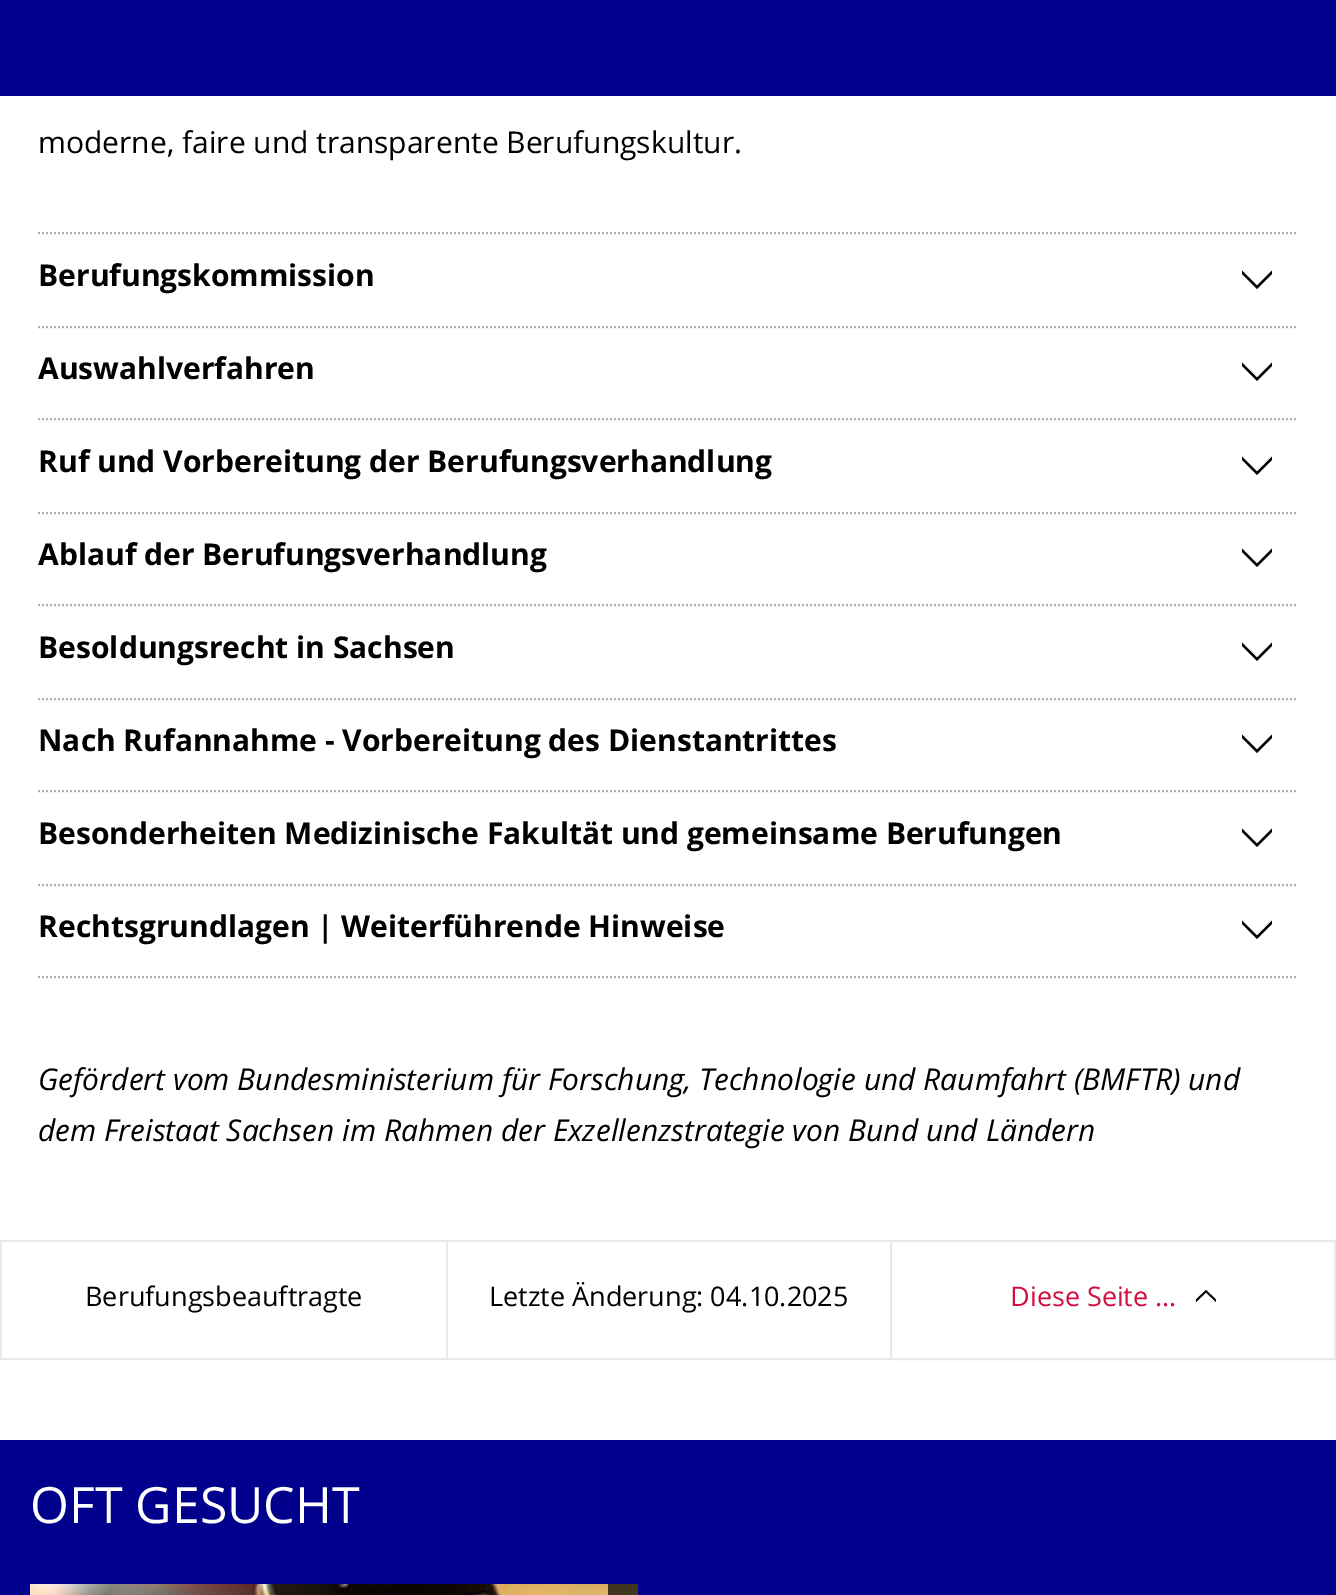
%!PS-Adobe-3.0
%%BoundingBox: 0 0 1336 1595
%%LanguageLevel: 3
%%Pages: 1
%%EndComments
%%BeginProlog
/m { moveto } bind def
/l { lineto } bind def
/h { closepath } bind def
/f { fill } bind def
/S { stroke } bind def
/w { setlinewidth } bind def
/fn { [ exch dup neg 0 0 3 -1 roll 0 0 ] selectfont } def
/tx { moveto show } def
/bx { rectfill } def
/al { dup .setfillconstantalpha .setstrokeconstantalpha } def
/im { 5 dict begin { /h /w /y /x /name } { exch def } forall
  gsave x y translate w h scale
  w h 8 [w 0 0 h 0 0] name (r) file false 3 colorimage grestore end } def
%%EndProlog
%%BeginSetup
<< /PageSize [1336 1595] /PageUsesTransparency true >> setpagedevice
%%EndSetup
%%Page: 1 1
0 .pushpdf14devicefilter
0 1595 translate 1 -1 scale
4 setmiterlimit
1 setgray
0 0 1336 1595 bx
0 0 0.549 setrgbcolor
0 0 1336 96 bx
/OpenSans-Regular 30 fn
0 setgray
(moderne, faire und transparente Berufungskultur.) 38 153 tx
0.671 0.694 0.722 setrgbcolor
2 w
[2 2] 0 setdash
38 233 m 1298 233 l S
38 327 m 1298 327 l S
/OpenSans-Bold 30 fn
0 setgray
(Berufungskommission) 38 286 tx
1242 270.5 m 1242 274 l 1257 289 l 1272 274 l 1272 270.5 l 1257 285.5 l h f
0.671 0.694 0.722 setrgbcolor
38 419 m 1298 419 l S
0 setgray
(Auswahlverfahren) 38 379 tx
1242 362.5 m 1242 366 l 1257 381 l 1272 366 l 1272 362.5 l 1257 377.5 l h f
0.671 0.694 0.722 setrgbcolor
38 513 m 1298 513 l S
0 setgray
(Ruf und Vorbereitung der Berufungsverhandlung) 38 472 tx
1242 456.5 m 1242 460 l 1257 475 l 1272 460 l 1272 456.5 l 1257 471.5 l h f
0.671 0.694 0.722 setrgbcolor
38 605 m 1298 605 l S
0 setgray
(Ablauf der Berufungsverhandlung) 38 565 tx
1242 548.5 m 1242 552 l 1257 567 l 1272 552 l 1272 548.5 l 1257 563.5 l h f
0.671 0.694 0.722 setrgbcolor
38 699 m 1298 699 l S
0 setgray
(Besoldungsrecht in Sachsen) 38 658 tx
1242 642.5 m 1242 646 l 1257 661 l 1272 646 l 1272 642.5 l 1257 657.5 l h f
0.671 0.694 0.722 setrgbcolor
38 791 m 1298 791 l S
0 setgray
(Nach Rufannahme - Vorbereitung des Dienstantrittes) 38 751 tx
1242 734.5 m 1242 738 l 1257 753 l 1272 738 l 1272 734.5 l 1257 749.5 l h f
0.671 0.694 0.722 setrgbcolor
38 885 m 1298 885 l S
0 setgray
(Besonderheiten Medizinische Fakultät und gemeinsame Berufungen) 38 844 tx
1242 828.5 m 1242 832 l 1257 847 l 1272 832 l 1272 828.5 l 1257 843.5 l h f
0.671 0.694 0.722 setrgbcolor
38 977 m 1298 977 l S
0 setgray
(Rechtsgrundlagen | Weiterführende Hinweise) 38 937 tx
1242 920.5 m 1242 924 l 1257 939 l 1272 924 l 1272 920.5 l 1257 935.5 l h f
/OpenSans-Italic 30 fn
(Gefördert vom Bundesministerium für Forschung, Technologie und Raumfahrt \(BMFTR\) und) 38 1090 tx
(dem Freistaat Sachsen im Rahmen der Exzellenzstrategie von Bund und Ländern) 38 1141 tx
0.906 0.914 0.929 setrgbcolor
0 1240 890 2 bx
0 1358 890 2 bx
0 1240 2 120 bx
/OpenSans-Regular 27 fn
0 setgray
(Berufungsbeauftragte) 85 1306 tx
0.906 0.914 0.929 setrgbcolor
446 1240 2 120 bx
0 setgray
(Letzte Änderung: 04.10.2025) 489 1306 tx
0.906 0.914 0.929 setrgbcolor
[] 0 setdash
891 1241 444 118 rectstroke
0.824 0.059 0.255 setrgbcolor
(Diese Seite …) 1010 1306 tx
0 setgray
1216 1302 m 1216 1299.5 l 1206 1290 l 1196 1299.5 l 1196 1302 l 1206 1292.5 l h f
0 0 0.549 setrgbcolor
0 1440 1336 155 bx
/OpenSans-Regular 50 fn
1 setgray
(OFT GESUCHT) 30 1523 tx
(image0.raw) 30 1584 608 11 im
0.7 al
0 setgray
608 1584 30 11 bx
.poppdf14devicefilter showpage
%%EOF
